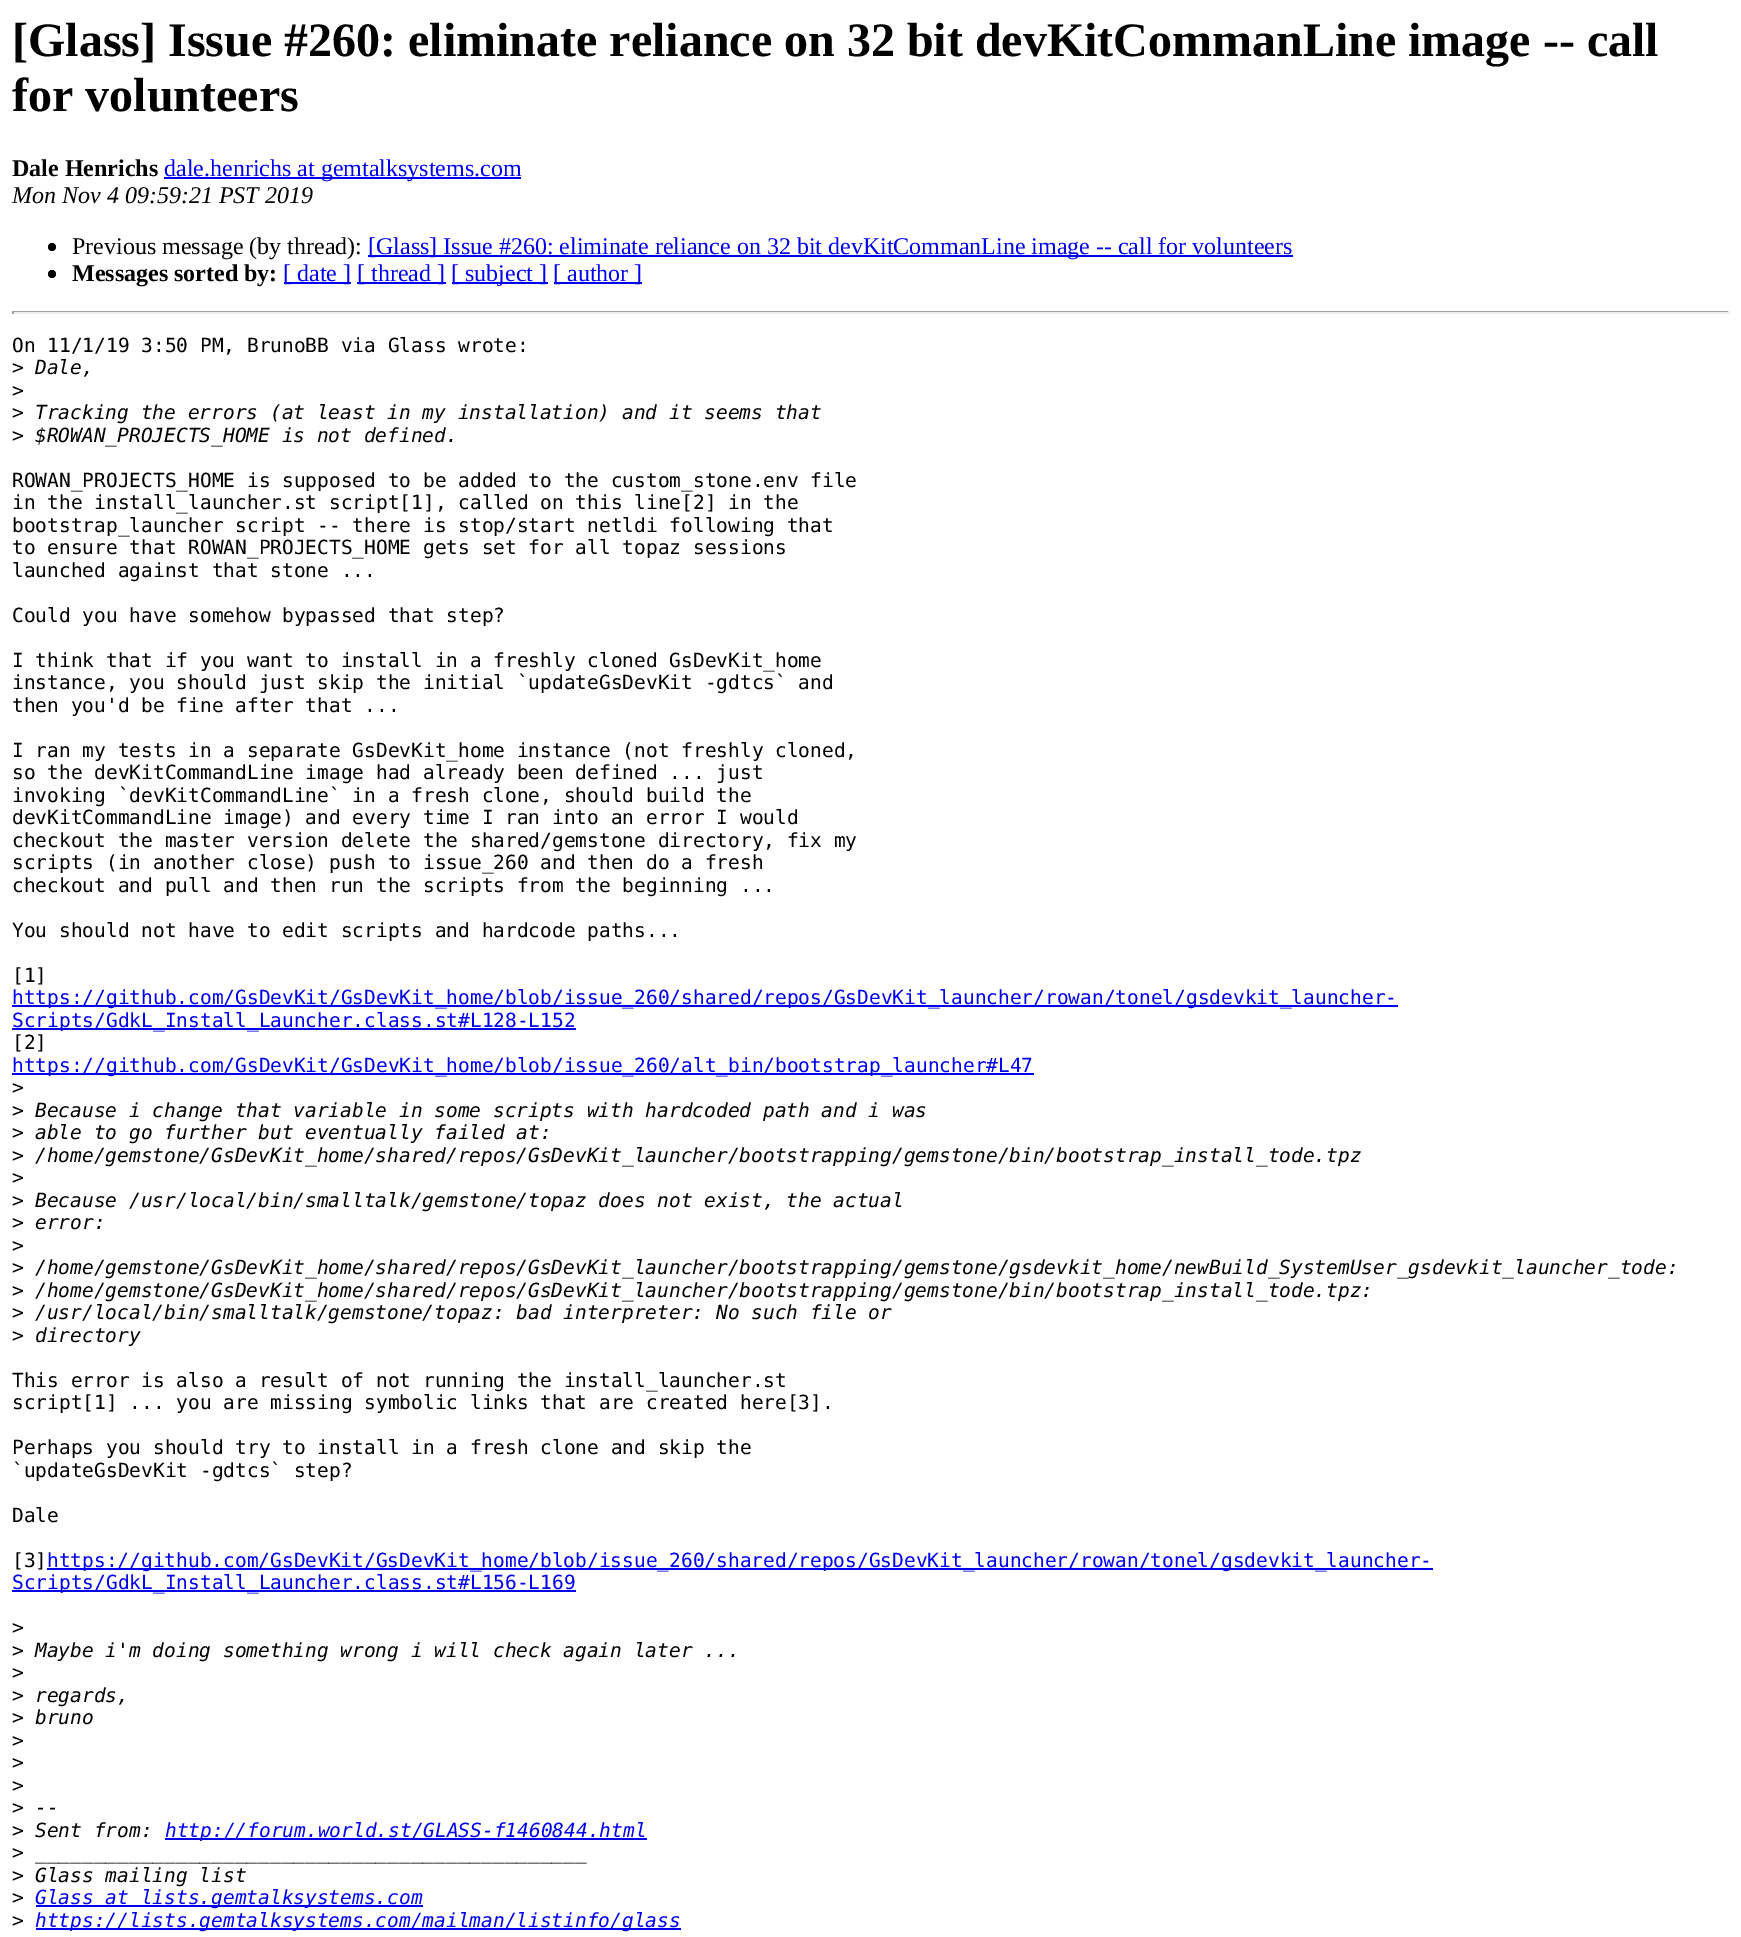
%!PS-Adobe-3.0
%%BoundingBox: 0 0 1741 1937
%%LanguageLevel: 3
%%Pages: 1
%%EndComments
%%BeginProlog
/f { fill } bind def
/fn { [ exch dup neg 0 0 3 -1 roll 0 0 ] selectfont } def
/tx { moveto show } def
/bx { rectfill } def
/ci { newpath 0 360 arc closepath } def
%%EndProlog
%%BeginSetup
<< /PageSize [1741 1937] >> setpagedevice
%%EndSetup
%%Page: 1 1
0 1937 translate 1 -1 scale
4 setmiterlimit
1 setgray
0 0 1741 1937 bx
/LiberationSerif-Bold 48 fn
0 setgray
([Glass] Issue #260: eliminate reliance on 32 bit devKitCommanLine image -- call) 12 56 tx
(for volunteers) 12 111 tx
/LiberationSerif-Bold 24 fn
(Dale Henrichs) 12 176 tx
0 0 0.933 setrgbcolor
164 177 357 2 bx
/LiberationSerif-Regular 24 fn
(dale.henrichs at gemtalksystems.com) 164 176 tx
/LiberationSerif-Italic 24 fn
0 setgray
(Mon Nov 4 09:59:21 PST 2019) 12 203 tx
52 247 4 ci f
/LiberationSerif-Regular 24 fn
(Previous message \(by thread\):) 72 254 tx
0 0 0.933 setrgbcolor
368 255 925 2 bx
([Glass] Issue #260: eliminate reliance on 32 bit devKitCommanLine image -- call for volunteers) 368 254 tx
0 setgray
52 274 4 ci f
/LiberationSerif-Bold 24 fn
(Messages sorted by:) 72 281 tx
0 0 0.933 setrgbcolor
284 282 67 2 bx
/LiberationSerif-Regular 24 fn
([ date ]) 283 281 tx
357 282 89 2 bx
([ thread ]) 357 281 tx
452 282 96 2 bx
([ subject ]) 451 281 tx
554 282 88 2 bx
([ author ]) 553 281 tx
0.624 setgray
12 311 1718 1 bx
0.933 setgray
1728 311 2 3 bx
12 312 1718 2 bx
0.624 setgray
12 311 2 3 bx
/DejaVuSansMono-Regular 19.5 fn
0 setgray
(On 11/1/19 3:50 PM, BrunoBB via Glass wrote:) 12 352 tx
(>) 12 374 tx
/DejaVuSansMono-Italic 19.5 fn
(Dale,) 35 374 tx
/DejaVuSansMono-Regular 19.5 fn
(>) 12 397 tx
(>) 12 419 tx
/DejaVuSansMono-Italic 19.5 fn
(Tracking the errors \(at least in my installation\) and it seems that) 35 419 tx
/DejaVuSansMono-Regular 19.5 fn
(>) 12 442 tx
/DejaVuSansMono-Italic 19.5 fn
($ROWAN_PROJECTS_HOME is not defined.) 35 442 tx
/DejaVuSansMono-Regular 19.5 fn
(ROWAN_PROJECTS_HOME is supposed to be added to the custom_stone.env file) 12 487 tx
(in the install_launcher.st script[1], called on this line[2] in the) 12 509 tx
(bootstrap_launcher script -- there is stop/start netldi following that) 12 532 tx
(to ensure that ROWAN_PROJECTS_HOME gets set for all topaz sessions) 12 554 tx
(launched against that stone ...) 12 577 tx
(Could you have somehow bypassed that step?) 12 622 tx
(I think that if you want to install in a freshly cloned GsDevKit_home) 12 667 tx
(instance, you should just skip the initial `updateGsDevKit -gdtcs` and) 12 689 tx
(then you'd be fine after that ...) 12 712 tx
(I ran my tests in a separate GsDevKit_home instance \(not freshly cloned,) 12 757 tx
(so the devKitCommandLine image had already been defined ... just) 12 779 tx
(invoking `devKitCommandLine` in a fresh clone, should build the) 12 802 tx
(devKitCommandLine image\) and every time I ran into an error I would) 12 824 tx
(checkout the master version delete the shared/gemstone directory, fix my) 12 847 tx
(scripts \(in another close\) push to issue_260 and then do a fresh) 12 869 tx
(checkout and pull and then run the scripts from the beginning ...) 12 892 tx
(You should not have to edit scripts and hardcode paths...) 12 937 tx
([1]) 12 982 tx
0 0 0.933 setrgbcolor
12 1005 1386 2 bx
(https://github.com/GsDevKit/GsDevKit_home/blob/issue_260/shared/repos/GsDevKit_launcher/rowan/tonel/gsdevkit_launcher-) 12 1004 tx
12 1028 564 2 bx
(Scripts/GdkL_Install_Launcher.class.st#L128-L152) 12 1027 tx
0 setgray
([2]) 12 1049 tx
0 0 0.933 setrgbcolor
12 1073 1022 2 bx
(https://github.com/GsDevKit/GsDevKit_home/blob/issue_260/alt_bin/bootstrap_launcher#L47) 12 1072 tx
0 setgray
(>) 12 1094 tx
(>) 12 1117 tx
/DejaVuSansMono-Italic 19.5 fn
(Because i change that variable in some scripts with hardcoded path and i was) 35 1117 tx
/DejaVuSansMono-Regular 19.5 fn
(>) 12 1139 tx
/DejaVuSansMono-Italic 19.5 fn
(able to go further but eventually failed at:) 35 1139 tx
/DejaVuSansMono-Regular 19.5 fn
(>) 12 1162 tx
/DejaVuSansMono-Italic 19.5 fn
(/home/gemstone/GsDevKit_home/shared/repos/GsDevKit_launcher/bootstrapping/gemstone/bin/bootstrap_install_tode.tpz) 35 1162 tx
/DejaVuSansMono-Regular 19.5 fn
(>) 12 1184 tx
(>) 12 1207 tx
/DejaVuSansMono-Italic 19.5 fn
(Because /usr/local/bin/smalltalk/gemstone/topaz does not exist, the actual) 35 1207 tx
/DejaVuSansMono-Regular 19.5 fn
(>) 12 1229 tx
/DejaVuSansMono-Italic 19.5 fn
(error:) 35 1229 tx
/DejaVuSansMono-Regular 19.5 fn
(>) 12 1252 tx
(>) 12 1274 tx
/DejaVuSansMono-Italic 19.5 fn
(/home/gemstone/GsDevKit_home/shared/repos/GsDevKit_launcher/bootstrapping/gemstone/gsdevkit_home/newBuild_SystemUser_gsdevkit_launcher_tode:) 35 1274 tx
/DejaVuSansMono-Regular 19.5 fn
(>) 12 1297 tx
/DejaVuSansMono-Italic 19.5 fn
(/home/gemstone/GsDevKit_home/shared/repos/GsDevKit_launcher/bootstrapping/gemstone/bin/bootstrap_install_tode.tpz:) 35 1297 tx
/DejaVuSansMono-Regular 19.5 fn
(>) 12 1319 tx
/DejaVuSansMono-Italic 19.5 fn
(/usr/local/bin/smalltalk/gemstone/topaz: bad interpreter: No such file or) 35 1319 tx
/DejaVuSansMono-Regular 19.5 fn
(>) 12 1342 tx
/DejaVuSansMono-Italic 19.5 fn
(directory) 35 1342 tx
/DejaVuSansMono-Regular 19.5 fn
(This error is also a result of not running the install_launcher.st) 12 1387 tx
(script[1] ... you are missing symbolic links that are created here[3].) 12 1409 tx
(Perhaps you should try to install in a fresh clone and skip the) 12 1454 tx
(`updateGsDevKit -gdtcs` step?) 12 1477 tx
(Dale) 12 1522 tx
([3]) 12 1567 tx
0 0 0.933 setrgbcolor
47 1568 1386 2 bx
(https://github.com/GsDevKit/GsDevKit_home/blob/issue_260/shared/repos/GsDevKit_launcher/rowan/tonel/gsdevkit_launcher-) 47 1567 tx
12 1590 564 2 bx
(Scripts/GdkL_Install_Launcher.class.st#L156-L169) 12 1589 tx
0 setgray
(>) 12 1634 tx
(>) 12 1657 tx
/DejaVuSansMono-Italic 19.5 fn
(Maybe i'm doing something wrong i will check again later ...) 35 1657 tx
/DejaVuSansMono-Regular 19.5 fn
(>) 12 1679 tx
(>) 12 1702 tx
/DejaVuSansMono-Italic 19.5 fn
(regards,) 35 1702 tx
/DejaVuSansMono-Regular 19.5 fn
(>) 12 1724 tx
/DejaVuSansMono-Italic 19.5 fn
(bruno) 35 1724 tx
/DejaVuSansMono-Regular 19.5 fn
(>) 12 1747 tx
(>) 12 1769 tx
(>) 12 1792 tx
(>) 12 1814 tx
/DejaVuSansMono-Italic 19.5 fn
(--) 35 1814 tx
/DejaVuSansMono-Regular 19.5 fn
(>) 12 1837 tx
/DejaVuSansMono-Italic 19.5 fn
(Sent from:) 35 1837 tx
0 0 0.933 setrgbcolor
165 1838 482 2 bx
(http://forum.world.st/GLASS-f1460844.html) 165 1837 tx
/DejaVuSansMono-Regular 19.5 fn
0 setgray
(>) 12 1859 tx
/DejaVuSansMono-Italic 19.5 fn
(_______________________________________________) 35 1859 tx
/DejaVuSansMono-Regular 19.5 fn
(>) 12 1882 tx
/DejaVuSansMono-Italic 19.5 fn
(Glass mailing list) 35 1882 tx
/DejaVuSansMono-Regular 19.5 fn
(>) 12 1904 tx
0 0 0.933 setrgbcolor
36 1905 387 2 bx
/DejaVuSansMono-Italic 19.5 fn
(Glass at lists.gemtalksystems.com) 35 1904 tx
/DejaVuSansMono-Regular 19.5 fn
0 setgray
(>) 12 1927 tx
0 0 0.933 setrgbcolor
36 1928 645 2 bx
/DejaVuSansMono-Italic 19.5 fn
(https://lists.gemtalksystems.com/mailman/listinfo/glass) 35 1927 tx
showpage
%%EOF
